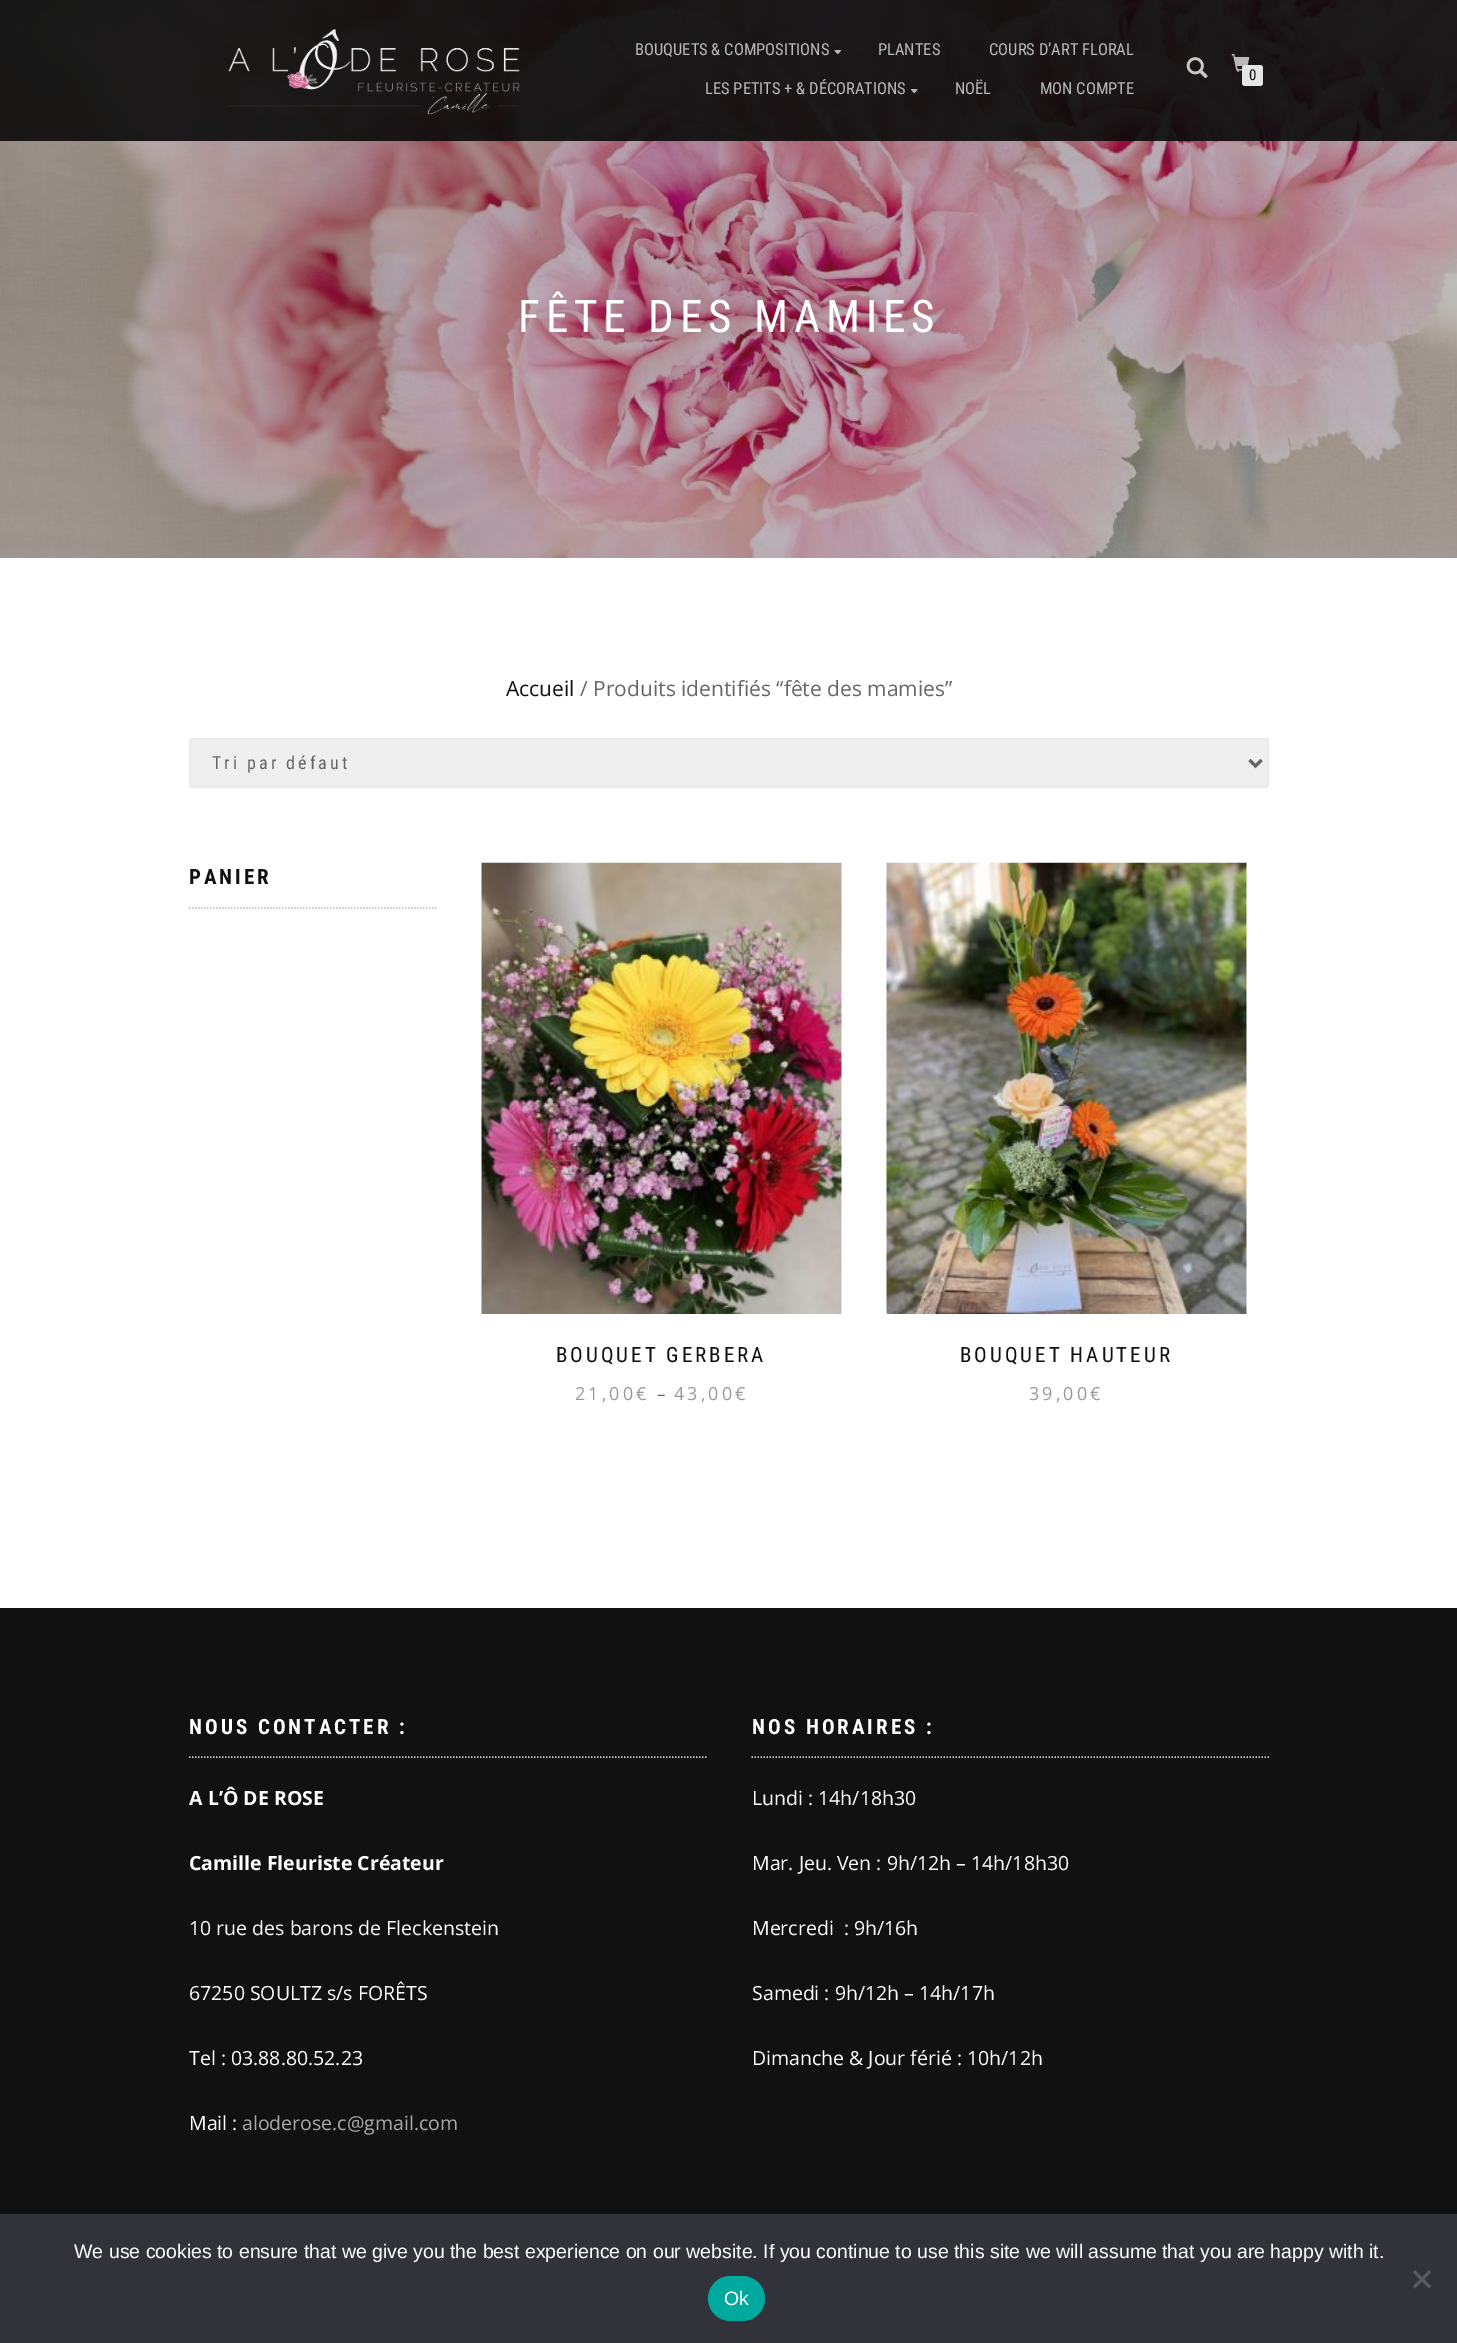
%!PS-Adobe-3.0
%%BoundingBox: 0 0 1457 2343
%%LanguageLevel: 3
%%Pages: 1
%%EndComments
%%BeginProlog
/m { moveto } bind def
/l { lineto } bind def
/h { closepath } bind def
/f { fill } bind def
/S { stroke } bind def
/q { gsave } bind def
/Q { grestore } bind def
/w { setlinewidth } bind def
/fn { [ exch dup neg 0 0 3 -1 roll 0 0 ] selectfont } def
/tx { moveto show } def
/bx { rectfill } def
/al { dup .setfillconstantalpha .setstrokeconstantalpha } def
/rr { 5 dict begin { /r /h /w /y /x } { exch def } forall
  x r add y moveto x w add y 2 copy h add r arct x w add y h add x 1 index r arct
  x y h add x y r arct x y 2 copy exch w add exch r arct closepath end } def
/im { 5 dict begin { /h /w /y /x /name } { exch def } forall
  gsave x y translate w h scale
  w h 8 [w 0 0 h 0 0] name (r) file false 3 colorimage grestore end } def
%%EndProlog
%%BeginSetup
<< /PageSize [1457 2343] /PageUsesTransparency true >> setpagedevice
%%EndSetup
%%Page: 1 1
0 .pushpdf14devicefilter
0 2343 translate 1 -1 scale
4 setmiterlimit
1 setgray
0 0 1457 2343 bx
(image5.raw) 0 0 1457 558 im
0.9 al
0.039 setgray
0 0 1457 141 bx
1 al
(image0.raw) 228 29 292 86 im
/RobotoCondensed-Regular 16.5 fn
0.729 0.725 0.729 setrgbcolor
(BOUQUETS & COMPOSITIONS) 635 55 tx
(image1.raw) 834 50 8 5 im
(PLANTES) 878 55 tx
(COURS D’ART FLORAL) 989 55 tx
(LES PETITS + & DÉCORATIONS) 705 94 tx
(image2.raw) 910 89 8 5 im
(NOËL) 955 94 tx
(MON COMPTE) 1040 94 tx
(image3.raw) 1186 57 22 22 im
(image4.raw) 1231 54 19 18 im
0.898 setgray
1242 65 21 21 3 rr f
/RobotoCondensed-Regular 15 fn
0.067 setgray
(0) 1249 80 tx
/RobotoCondensed-Regular 45 fn
1 setgray
518 332 m 6 0 (FÊTE DES MAMIES) ashow
/OpenSans-Regular 21 fn
0.067 setgray
(Accueil) 506 696 tx
0.4 setgray
(/ Produits identifiés “fête des mamies”) 580 696 tx
0.937 setgray
190 739 1078 48 2 rr q f Q
0.918 setgray
2 w
S
0.4 setgray
3 w
1249.5 760 m 1255.5 766 l 1261.5 760 l S
/RobotoCondensed-Regular 18 fn
212 769 m 3 0 (Tri par défaut) ashow
0.761 setgray
1.5 w
[1.5 1.5] 0 setdash
189 908 m 436.5 908 l S
/RobotoCondensed-Bold 21 fn
0.067 setgray
189 884 m 3 0 (PANIER) ashow
(image6.raw) 481 862 361 452 im
/RobotoCondensed-Regular 21 fn
556 1362 m 3 0 (BOUQUET GERBERA) ashow
/OpenSans-Regular 18 fn
0.6 setgray
575 1400 m 3 0 (21,00€) ashow
/OpenSans-Regular 17 fn
0.376 0.392 0.424 setrgbcolor
(–) 657 1400 tx
/OpenSans-Regular 18 fn
0.6 setgray
674 1400 m 3 0 (43,00€) ashow
(image7.raw) 886 862 361 452 im
/RobotoCondensed-Regular 21 fn
0.067 setgray
960 1362 m 3 0 (BOUQUET HAUTEUR) ashow
/OpenSans-Regular 18 fn
0.6 setgray
1029 1400 m 3 0 (39,00€) ashow
0.067 setgray
0 1608 1457 606 bx
0.761 setgray
189 1757 m 706.5 1757 l S
/RobotoCondensed-Bold 21 fn
1 setgray
189 1734 m 3 0 (NOUS CONTACTER :) ashow
/OpenSans-Bold 19.5 fn
(A L’Ô DE ROSE) 189 1805 tx
(Camille Fleuriste Créateur) 189 1870 tx
/OpenSans-Regular 19.5 fn
(10 rue des barons de Fleckenstein) 189 1935 tx
(67250 SOULTZ s/s FORÊTS) 189 2000 tx
(Tel : 03.88.80.52.23) 189 2065 tx
(Mail :) 189 2130 tx
0.667 setgray
(aloderose.c@gmail.com) 242 2130 tx
0.761 setgray
751.5 1757 m 1269 1757 l S
/RobotoCondensed-Bold 21 fn
1 setgray
752 1734 m 3 0 (NOS HORAIRES :) ashow
/OpenSans-Regular 19.5 fn
(Lundi : 14h/18h30) 752 1805 tx
(Mar. Jeu. Ven : 9h/12h – 14h/18h30) 752 1870 tx
(Mercredi  : 9h/16h) 752 1935 tx
(Samedi : 9h/12h – 14h/17h) 752 2000 tx
(Dimanche & Jour férié : 10h/12h) 752 2065 tx
0.196 0.196 0.227 setrgbcolor
0 2214 1457 129 bx
/LiberationSans-Regular 19.5 fn
1 setgray
(We use cookies to ensure that we give you the best experience on our website. If you continue to use this site we will assume that you are happy with it.) 74 2258 tx
0.349 0.349 0.365 setrgbcolor
1429 2270 m 1431 2272.5 l 1415 2288.5 l 1413 2286 l h f
1413 2272.5 m 1415 2270 l 1431 2286 l 1429 2288.5 l h f
0 0.663 0.616 setrgbcolor
708 2276 57 45 22.5 rr f
1 setgray
(Ok) 724 2305 tx
.poppdf14devicefilter showpage
%%EOF
